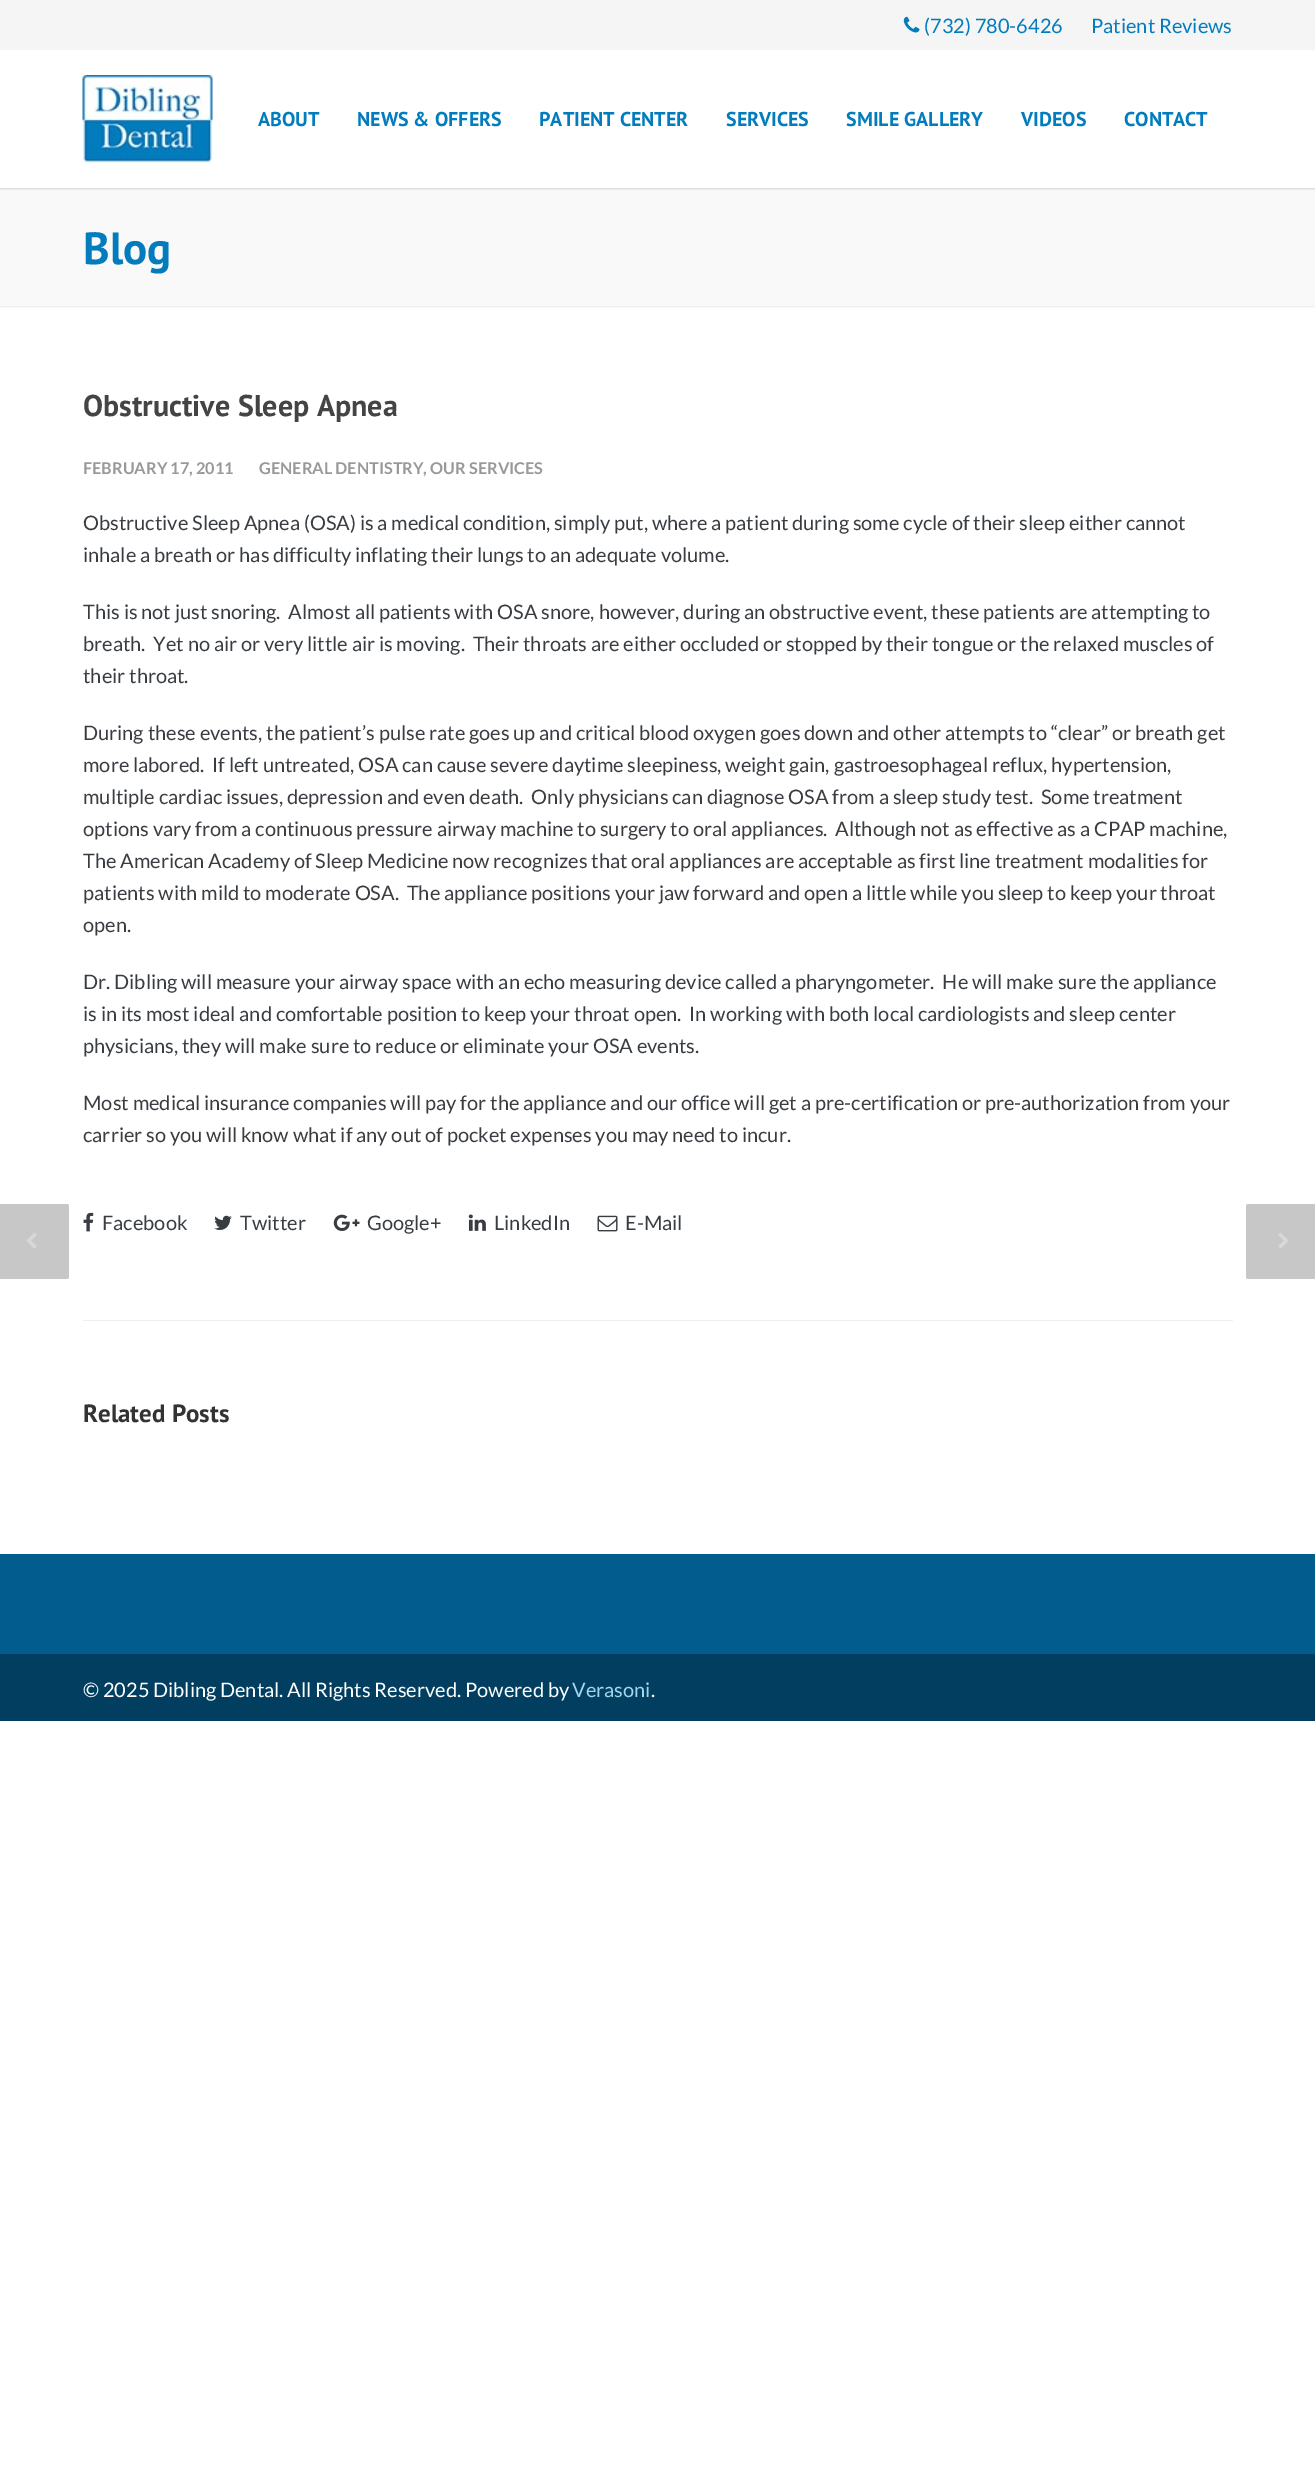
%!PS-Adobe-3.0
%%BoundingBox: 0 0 1315 2482
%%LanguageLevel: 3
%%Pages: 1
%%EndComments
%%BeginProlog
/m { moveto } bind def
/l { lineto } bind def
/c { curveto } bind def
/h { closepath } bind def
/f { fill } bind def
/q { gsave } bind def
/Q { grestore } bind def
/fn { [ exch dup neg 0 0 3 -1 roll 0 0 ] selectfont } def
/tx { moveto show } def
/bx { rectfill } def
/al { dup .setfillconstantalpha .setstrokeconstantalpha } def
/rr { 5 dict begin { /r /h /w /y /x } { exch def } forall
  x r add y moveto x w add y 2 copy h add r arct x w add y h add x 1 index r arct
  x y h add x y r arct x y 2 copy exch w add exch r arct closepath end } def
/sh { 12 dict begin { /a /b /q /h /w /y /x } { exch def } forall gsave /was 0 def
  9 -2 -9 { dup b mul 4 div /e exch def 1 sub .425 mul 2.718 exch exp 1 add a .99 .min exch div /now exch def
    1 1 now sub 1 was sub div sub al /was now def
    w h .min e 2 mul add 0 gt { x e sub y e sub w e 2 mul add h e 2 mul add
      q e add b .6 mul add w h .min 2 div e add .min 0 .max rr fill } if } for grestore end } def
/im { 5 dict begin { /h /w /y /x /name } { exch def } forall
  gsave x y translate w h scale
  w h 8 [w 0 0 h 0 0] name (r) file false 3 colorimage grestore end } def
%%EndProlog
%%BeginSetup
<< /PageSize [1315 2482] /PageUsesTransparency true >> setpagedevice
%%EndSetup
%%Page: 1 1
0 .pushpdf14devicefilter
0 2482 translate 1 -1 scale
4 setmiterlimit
1 setgray
0 0 1315 2482 bx
0.976 setgray
0 188 1315 120 bx
0 setgray
-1 49 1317 140 0 1 0.16 sh
0.961 setgray
0 0 1315 50 bx
(image0.raw) 903 16 17 17 im
/Lato-Regular 20 fn
0.008 0.486 0.741 setrgbcolor
(\(732\) 780-6426) 924 33 tx
(Patient Reviews) 1091 33 tx
1 setgray
0 50 1315 138 bx
(image1.raw) 82 75 131 88 im
/PTSans-Bold 20 fn
0.008 0.486 0.741 setrgbcolor
(ABOUT) 258 126 tx
(NEWS & OFFERS) 357 126 tx
(PATIENT CENTER) 539 126 tx
(SERVICES) 726 126 tx
(SMILE GALLERY) 846 126 tx
(VIDEOS) 1021 126 tx
(CONTACT) 1124 126 tx
0.937 setgray
0 306 1315 1 bx
/PTSans-Bold 45 fn
0.008 0.486 0.741 setrgbcolor
(Blog) 83 264 tx
/PTSans-Bold 30 fn
0.267 setgray
(Obstructive Sleep Apnea) 83 416 tx
/Lato-Bold 16.25 fn
0.6 setgray
(FEBRUARY 17, 2011) 83 474 tx
(GENERAL DENTISTRY, OUR SERVICES) 259 474 tx
/Lato-Regular 20 fn
0.224 0.239 0.259 setrgbcolor
(Obstructive Sleep Apnea \(OSA\) is a medical condition, simply put, where a patient during some cycle of their sleep either cannot) 83 530 tx
(inhale a breath or has difficulty inflating their lungs to an adequate volume.) 83 562 tx
q
83 383 1150 792 rectclip
(This is not just snoring.  Almost all patients with OSA snore, however, during an obstructive event, these patients are attempting to) 83 619 tx
Q
(breath.  Yet no air or very little air is moving.  Their throats are either occluded or stopped by their tongue or the relaxed muscles of) 83 651 tx
(their throat.) 83 683 tx
(During these events, the patient’s pulse rate goes up and critical blood oxygen goes down and other attempts to “clear” or breath get) 83 740 tx
(more labored.  If left untreated, OSA can cause severe daytime sleepiness, weight gain, gastroesophageal reflux, hypertension,) 83 772 tx
(multiple cardiac issues, depression and even death.  Only physicians can diagnose OSA from a sleep study test.  Some treatment) 83 804 tx
(options vary from a continuous pressure airway machine to surgery to oral appliances.  Although not as effective as a CPAP machine,) 83 836 tx
q
83 383 1150 792 rectclip
(The American Academy of Sleep Medicine now recognizes that oral appliances are acceptable as first line treatment modalities for) 83 868 tx
Q
(patients with mild to moderate OSA.  The appliance positions your jaw forward and open a little while you sleep to keep your throat) 83 900 tx
(open.) 83 932 tx
(Dr. Dibling will measure your airway space with an echo measuring device called a pharyngometer.  He will make sure the appliance) 83 989 tx
(is in its most ideal and comfortable position to keep your throat open.  In working with both local cardiologists and sleep center) 83 1021 tx
(physicians, they will make sure to reduce or eliminate your OSA events.) 83 1053 tx
(Most medical insurance companies will pay for the appliance and our office will get a pre-certification or pre-authorization from your) 83 1110 tx
(carrier so you will know what if any out of pocket expenses you may need to incur.) 83 1142 tx
0.78 setgray
-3 1204 m 66.5 1204 l 68 1204 69 1205 69 1206.5 c 69 1276.5 l 69 1278 68 1279 66.5 1279 c -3 1279 l h f
(image2.raw) 26 1233 11 16 im
1248.5 1204 m 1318 1204 l 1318 1279 l 1248.5 1279 l 1247 1279 1246 1278 1246 1276.5 c 1246 1206.5 l 1246 1205 1247 1204 1248.5 1204 c h f
(image3.raw) 1278 1233 11 16 im
(image4.raw) 83 1212 11 20 im
0.224 0.239 0.259 setrgbcolor
(Facebook) 102 1230 tx
(image5.raw) 214 1215 18 15 im
(Twitter) 240 1230 tx
(image6.raw) 333 1214 27 17 im
(Google+) 367 1230 tx
(image7.raw) 468 1214 18 17 im
(LinkedIn) 494 1230 tx
(image8.raw) 597 1215 21 17 im
(E-Mail) 625 1230 tx
0.937 setgray
83 1320 1150 1 bx
/PTSans-Bold 25 fn
0.2 setgray
(Related Posts) 83 1422 tx
0.008 0.365 0.557 setrgbcolor
0 1554 1315 100 bx
0.004 0.243 0.373 setrgbcolor
0 1654 1315 67 bx
/Lato-Regular 20 fn
1 setgray
(© 2025 Dibling Dental. All Rights Reserved. Powered by) 83 1697 tx
0.635 0.839 0.929 setrgbcolor
(Verasoni) 572 1697 tx
1 setgray
(.) 651 1697 tx
.poppdf14devicefilter showpage
%%EOF
